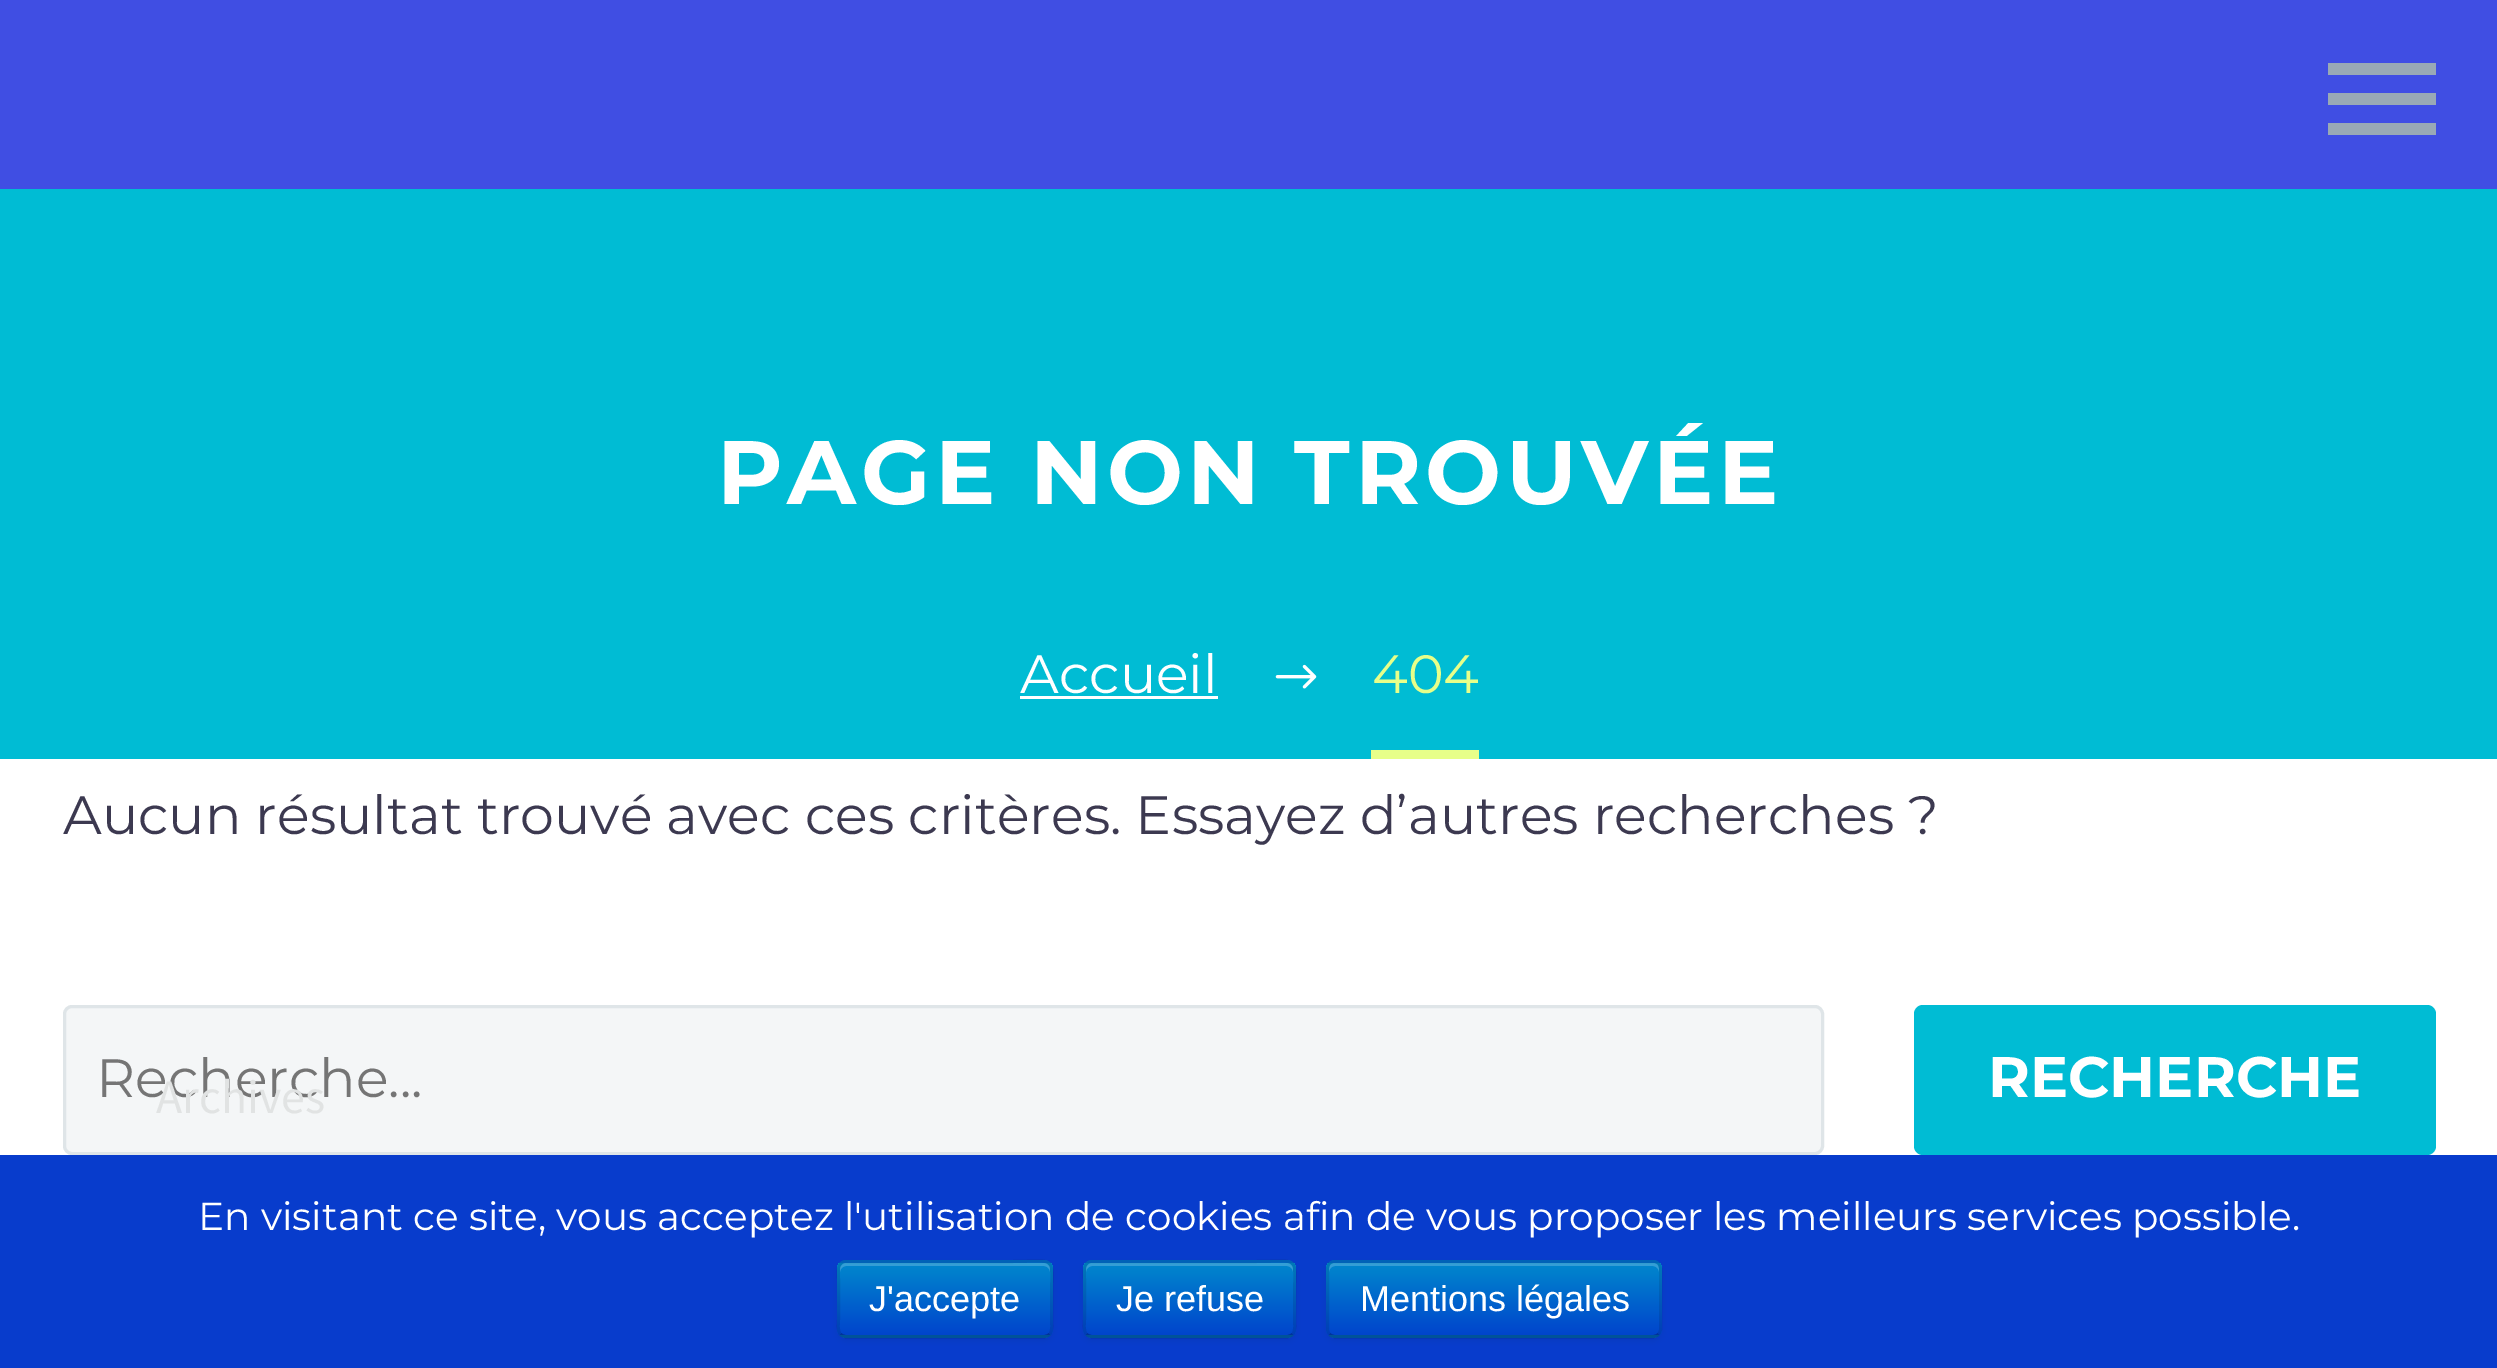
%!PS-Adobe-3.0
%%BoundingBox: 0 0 2497 1368
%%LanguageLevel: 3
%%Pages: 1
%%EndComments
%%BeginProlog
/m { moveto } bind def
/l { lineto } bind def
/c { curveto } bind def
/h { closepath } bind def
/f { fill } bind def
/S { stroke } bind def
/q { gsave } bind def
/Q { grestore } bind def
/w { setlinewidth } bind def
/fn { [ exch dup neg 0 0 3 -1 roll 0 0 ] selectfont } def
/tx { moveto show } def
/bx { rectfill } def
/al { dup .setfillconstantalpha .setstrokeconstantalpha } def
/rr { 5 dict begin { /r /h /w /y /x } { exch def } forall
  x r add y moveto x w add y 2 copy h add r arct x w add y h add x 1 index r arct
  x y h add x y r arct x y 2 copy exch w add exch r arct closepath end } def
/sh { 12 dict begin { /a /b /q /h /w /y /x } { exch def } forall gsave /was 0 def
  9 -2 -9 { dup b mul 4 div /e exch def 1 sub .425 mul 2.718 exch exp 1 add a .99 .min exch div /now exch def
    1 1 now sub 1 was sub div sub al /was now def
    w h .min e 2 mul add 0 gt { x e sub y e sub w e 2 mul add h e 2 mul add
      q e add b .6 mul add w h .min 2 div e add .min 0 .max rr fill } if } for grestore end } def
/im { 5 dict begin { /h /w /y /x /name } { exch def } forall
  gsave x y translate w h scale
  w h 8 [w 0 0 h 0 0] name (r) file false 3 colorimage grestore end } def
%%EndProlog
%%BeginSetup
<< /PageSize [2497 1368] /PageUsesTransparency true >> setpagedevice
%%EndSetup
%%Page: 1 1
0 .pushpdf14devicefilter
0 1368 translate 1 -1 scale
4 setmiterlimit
0.251 0.306 0.89 setrgbcolor
0 0 2497 1368 bx
0 0.737 0.831 setrgbcolor
0 189 2497 570 bx
/Montserrat-Bold 90 fn
1 setgray
717 504 m 4.5 0 (PAGE NON TROUVÉE) ashow
/Montserrat-Regular 54 fn
(Accueil) 1020 693 tx
1020 696 198 3 bx
(image0.raw) 1275 664 42 25 im
0.906 1 0.537 setrgbcolor
1371 750 108 9 bx
(404) 1372 693 tx
1 setgray
0 759 2497 396 bx
0.235 0.224 0.314 setrgbcolor
(Aucun résultat trouvé avec ces critères. Essayez d’autres recherches ?) 63 834 tx
0.957 0.965 0.969 setrgbcolor
64.5 1006.5 1758 147 7.5 rr q f Q
0.875 0.898 0.91 setrgbcolor
3 w
S
0.459 setgray
(Recherche...) 96 1097 tx
0 0.737 0.831 setrgbcolor
1914 1005 522 150 9 rr f
/Montserrat-Bold 57 fn
1 setgray
(RECHERCHE) 1988 1097 tx
0.6 0.663 0.71 setrgbcolor
2328 63 108 12 bx
2328 93 108 12 bx
2328 123 108 12 bx
/SourceSansPro-Regular 48 fn
0.882 0.89 0.89 setrgbcolor
(Archives) 156 1113 tx
0.031 0.235 0.8 setrgbcolor
0 1155 2497 213 bx
/Montserrat-Regular 39 fn
1 setgray
(En visitant ce site, vous acceptez l'utilisation de cookies afin de vous proposer les meilleurs services possible.) 198 1230 tx
0 setgray
837 1263 216 78 9 3 0.05 sh
0 0.427 0.8 setrgbcolor
837 1260 216 78 9 rr f
q
837 1260 216 78 9 rr clip newpath
q 837 1263 m 1053 1263 l 1053 1335 l 837 1335 l h clip newpath
<< /ShadingType 2 /ColorSpace /DeviceRGB /Coords [945 1263 945 1335] /Extend [true true] /Function << /FunctionType 2 /Domain [0 1] /C0 [0 0.533 0.8] /C1 [0 0.267 0.8] /N 1 >> >> shfill Q
Q
0.2 al
1 setgray
846 1266 m 1044 1266 l 1047 1266 1050 1269 1050 1272 c 1050 1269 l 1050 1266 1047 1263 1044 1263 c 846 1263 l 843 1263 840 1266 840 1269 c 840 1272 l 840 1269 843 1266 846 1266 c h f
0.25 al
0 setgray
1049.5 1334.5 m 1048 1335.5 1046 1336.5 1044 1336.5 c 846 1336.5 l 844 1336.5 842 1335.5 840.5 1334.5 c S
0.1 al
840.5 1334.5 m 837 1330.5 838.5 1323 838.5 1319 c 838.5 1279 l 838.5 1273 836.5 1261.5 846 1261.5 c 1011 1261.5 l 1058.5 1261.5 1051.5 1254 1051.5 1299 c 1051.5 1319 l 1051.5 1323 1053 1330.5 1049.5 1334.5 c S
/LiberationSans-Regular 36 fn
1 al
1 setgray
(J'accepte) 869 1311 tx
0 setgray
1083 1263 213 78 9 3 0.05 sh
0 0.427 0.8 setrgbcolor
1083 1260 213 78 9 rr f
q
1083 1260 213 78 9 rr clip newpath
q 1083 1263 m 1296 1263 l 1296 1335 l 1083 1335 l h clip newpath
<< /ShadingType 2 /ColorSpace /DeviceRGB /Coords [1190 1263 1190 1335] /Extend [true true] /Function << /FunctionType 2 /Domain [0 1] /C0 [0 0.533 0.8] /C1 [0 0.267 0.8] /N 1 >> >> shfill Q
Q
0.2 al
1 setgray
1092 1266 m 1287 1266 l 1290 1266 1293 1269 1293 1272 c 1293 1269 l 1293 1266 1290 1263 1287 1263 c 1092 1263 l 1089 1263 1086 1266 1086 1269 c 1086 1272 l 1086 1269 1089 1266 1092 1266 c h f
0.25 al
0 setgray
1292.5 1334.5 m 1291 1335.5 1289 1336.5 1287 1336.5 c 1092 1336.5 l 1090 1336.5 1088 1335.5 1086.5 1334.5 c S
0.1 al
1086.5 1334.5 m 1083 1330.5 1084.5 1323 1084.5 1319 c 1084.5 1279 l 1084.5 1273 1082.5 1261.5 1092 1261.5 c 1254.5 1261.5 l 1301.5 1261.5 1294.5 1254 1294.5 1299 c 1294.5 1319 l 1294.5 1323 1296 1330.5 1292.5 1334.5 c S
1 al
1 setgray
(Je refuse) 1116 1311 tx
0 setgray
1326 1263 336 78 9 3 0.05 sh
0 0.427 0.8 setrgbcolor
1326 1260 336 78 9 rr f
q
1326 1260 336 78 9 rr clip newpath
q 1326 1263 m 1662 1263 l 1662 1335 l 1326 1335 l h clip newpath
<< /ShadingType 2 /ColorSpace /DeviceRGB /Coords [1494 1263 1494 1335] /Extend [true true] /Function << /FunctionType 2 /Domain [0 1] /C0 [0 0.533 0.8] /C1 [0 0.267 0.8] /N 1 >> >> shfill Q
Q
0.2 al
1 setgray
1335 1266 m 1653 1266 l 1656 1266 1659 1269 1659 1272 c 1659 1268 1659 1264 1654 1263 c 1334 1263 l 1329 1264 1329 1268 1329 1272 c 1329 1269 1332 1266 1335 1266 c h f
0.25 al
0 setgray
1658.5 1334.5 m 1657 1335.5 1655 1336.5 1653 1336.5 c 1335 1336.5 l 1333 1336.5 1331 1335.5 1329.5 1334.5 c S
0.1 al
1329.5 1334.5 m 1328.5 1333 1327.5 1331 1327.5 1329 c 1327.5 1269 l 1327.5 1267 1328.5 1265 1329.5 1263.5 c 1331 1262.5 1333 1261.5 1335 1261.5 c 1653 1261.5 l 1655 1261.5 1657 1262.5 1658.5 1263.5 c 1659.5 1265 1660.5 1267 1660.5 1269 c 1660.5 1329 l 1660.5 1331 1659.5 1333 1658.5 1334.5 c S
1 al
1 setgray
(Mentions légales) 1360 1311 tx
.poppdf14devicefilter showpage
%%EOF
